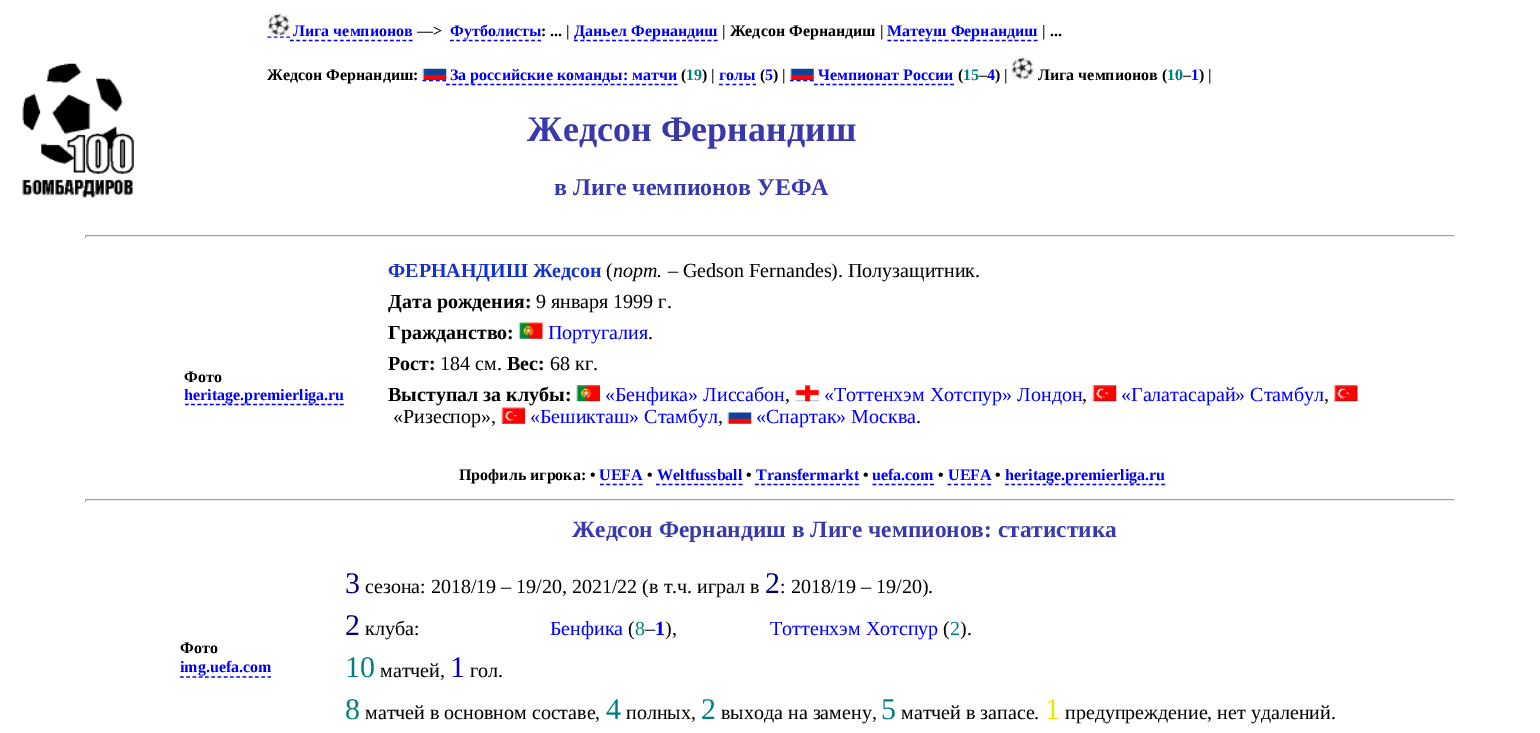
%!PS-Adobe-3.0
%%BoundingBox: 0 0 1540 733
%%LanguageLevel: 3
%%Pages: 1
%%EndComments
%%BeginProlog
/m { moveto } bind def
/l { lineto } bind def
/S { stroke } bind def
/w { setlinewidth } bind def
/fn { [ exch dup neg 0 0 3 -1 roll 0 0 ] selectfont } def
/tx { moveto show } def
/bx { rectfill } def
/im { 5 dict begin { /h /w /y /x /name } { exch def } forall
  gsave x y translate w h scale
  w h 8 [w 0 0 h 0 0] name (r) file false 3 colorimage grestore end } def
%%EndProlog
%%BeginSetup
<< /PageSize [1540 733] >> setpagedevice
%%EndSetup
%%Page: 1 1
0 733 translate 1 -1 scale
4 setmiterlimit
1 setgray
0 0 1540 733 bx
(image0.raw) 22 63 112 135 im
0 0 1 setrgbcolor
1.2 w
[3.75 2.5] 0 setdash
267.5 37 m 290 37 l S
(image1.raw) 267 13 23 24 im
/LiberationSerif-Bold 16 fn
(Лига чемпионов) 293 36 tx
290 40.5 m 412.5 40.5 l S
0 setgray
(—>) 417 36 tx
0 0 1 setrgbcolor
450 40.5 m 541 40.5 l S
(Футболисты) 450 36 tx
0 setgray
(: ... |) 541 36 tx
0 0 1 setrgbcolor
[3.75 2.61] 0 setdash
574 40.5 m 717.5 40.5 l S
(Даньел Фернандиш) 574 36 tx
0 setgray
(| Жедсон Фернандиш |) 722 36 tx
0 0 1 setrgbcolor
887.5 40.5 m 1037.5 40.5 l S
(Матеуш Фернандиш) 887 36 tx
0 setgray
(| ...) 1042 36 tx
(Жедсон Фернандиш:) 267 80 tx
0 0 1 setrgbcolor
[3.75 2.91] 0 setdash
422.5 80.5 m 446 80.5 l S
(image2.raw) 422 68 25 12 im
[3.75 2.58] 0 setdash
446 84.5 m 677.5 84.5 l S
(За российские команды: матчи) 450 80 tx
0 setgray
(\() 681 80 tx
0 0.498 0.498 setrgbcolor
(19) 686 80 tx
0 setgray
(\) |) 702 80 tx
0 0 1 setrgbcolor
(голы) 719 80 tx
[3.75 3] 0 setdash
719 84.5 m 756 84.5 l S
0 setgray
(\() 760 80 tx
0 0 1 setrgbcolor
(5) 765 80 tx
0 setgray
(\) |) 773 80 tx
0 0 1 setrgbcolor
[3.75 2.91] 0 setdash
790 80.5 m 814 80.5 l S
(image3.raw) 790 68 24 12 im
(Чемпионат России) 818 80 tx
[3.75 2.44] 0 setdash
814 84.5 m 954 84.5 l S
0 setgray
(\() 958 80 tx
0 0.498 0.498 setrgbcolor
(15) 963 80 tx
0 setgray
(–) 979 80 tx
0 0 1 setrgbcolor
(4) 987 80 tx
0 setgray
(\) |) 995 80 tx
(image4.raw) 1011 57 23 23 im
(Лига чемпионов \() 1038 80 tx
0 0.498 0.498 setrgbcolor
(10) 1167 80 tx
0 setgray
(–) 1183 80 tx
0 0 1 setrgbcolor
(1) 1191 80 tx
0 setgray
(\) |) 1199 80 tx
/LiberationSerif-Bold 36 fn
0.224 0.224 0.675 setrgbcolor
(Жедсон Фернандиш) 527 141 tx
/LiberationSerif-Bold 24 fn
(в Лиге чемпионов УЕФА) 554 195 tx
0.624 setgray
85 235 1370 1 bx
0.933 setgray
1454 235 1 3 bx
85 236 1370 1 bx
0.624 setgray
85 235 1 3 bx
/LiberationSerif-Bold 16 fn
0 setgray
(Фото) 184 382 tx
0 0 1 setrgbcolor
[3.75 2.45] 0 setdash
185 404.5 m 344 404.5 l S
(heritage.premierliga.ru) 184 400 tx
/LiberationSerif-Bold 20 fn
0.078 0.196 0.784 setrgbcolor
(ФЕРНАНДИШ Жедсон) 388 277 tx
/LiberationSerif-Regular 20 fn
0 setgray
(\() 606 277 tx
/LiberationSerif-Italic 20 fn
(порт.) 613 277 tx
/LiberationSerif-Regular 20 fn
(– Gedson Fernandes\). Полузащитник.) 668 277 tx
/LiberationSerif-Bold 20 fn
(Дата рождения:) 388 308 tx
/LiberationSerif-Regular 20 fn
(9 января 1999 г.) 536 308 tx
/LiberationSerif-Bold 20 fn
(Гражданство:) 388 339 tx
(image5.raw) 518 322 25 17 im
/LiberationSerif-Regular 20 fn
0 0 1 setrgbcolor
(Португалия) 548 339 tx
0 setgray
(.) 648 339 tx
/LiberationSerif-Bold 20 fn
(Рост:) 388 370 tx
/LiberationSerif-Regular 20 fn
(184 см.) 440 370 tx
/LiberationSerif-Bold 20 fn
(Вес:) 507 370 tx
/LiberationSerif-Regular 20 fn
(68 кг.) 550 370 tx
/LiberationSerif-Bold 20 fn
(Выступал за клубы:) 388 401 tx
(image6.raw) 576 385 24 17 im
/LiberationSerif-Regular 20 fn
0 0 1 setrgbcolor
(«Бенфика» Лиссабон) 605 401 tx
0 setgray
(,) 785 401 tx
(image7.raw) 795 385 24 17 im
0 0 1 setrgbcolor
(«Тоттенхэм Хотспур» Лондон) 824 401 tx
0 setgray
(,) 1082 401 tx
(image8.raw) 1092 385 25 17 im
0 0 1 setrgbcolor
(«Галатасарай» Стамбул) 1121 401 tx
0 setgray
(,) 1324 401 tx
(image9.raw) 1333 385 25 17 im
(«Ризеспор»,) 393 423 tx
(image10.raw) 501 407 24 17 im
0 0 1 setrgbcolor
(«Бешикташ» Стамбул) 530 423 tx
0 setgray
(,) 718 423 tx
(image11.raw) 727 412 25 12 im
0 0 1 setrgbcolor
(«Спартак» Москва) 756 423 tx
0 setgray
(.) 916 423 tx
/LiberationSerif-Bold 16 fn
(Профиль игрока: •) 459 480 tx
0 0 1 setrgbcolor
(UEFA) 599 480 tx
[3.75 2.71] 0 setdash
600 484.5 m 642.5 484.5 l S
0 setgray
(•) 647 480 tx
0 0 1 setrgbcolor
(Weltfussball) 657 480 tx
[3.75 2.6] 0 setdash
656 484.5 m 742.5 484.5 l S
0 setgray
(•) 746 480 tx
0 0 1 setrgbcolor
(Transfermarkt) 756 480 tx
[3.75 2.5] 0 setdash
755 484.5 m 859 484.5 l S
0 setgray
(•) 863 480 tx
0 0 1 setrgbcolor
(uefa.com) 872 480 tx
[3.75 2.64] 0 setdash
872.5 484.5 m 934 484.5 l S
0 setgray
(•) 938 480 tx
0 0 1 setrgbcolor
(UEFA) 948 480 tx
[3.75 2.91] 0 setdash
947.5 484.5 m 991 484.5 l S
0 setgray
(•) 995 480 tx
0 0 1 setrgbcolor
[3.75 2.5] 0 setdash
1005 484.5 m 1165 484.5 l S
(heritage.premierliga.ru) 1005 480 tx
0.624 setgray
85 499 1370 1 bx
0.933 setgray
1454 499 1 3 bx
85 500 1370 1 bx
0.624 setgray
85 499 1 3 bx
0 setgray
(Фото) 180 653 tx
0 0 1 setrgbcolor
(img.uefa.com) 180 672 tx
180 677 m 271 677 l S
/LiberationSerif-Bold 23.4 fn
0.224 0.224 0.675 setrgbcolor
(Жедсон Фернандиш в Лиге чемпионов: статистика) 572 537 tx
/LiberationSerif-Regular 30 fn
0 0 0.498 setrgbcolor
(3) 345 593 tx
/LiberationSerif-Regular 20 fn
0 setgray
(сезона: 2018/19 – 19/20, 2021/22 \(в т.ч. играл в) 365 593 tx
/LiberationSerif-Regular 30 fn
0 0 0.498 setrgbcolor
(2) 765 593 tx
/LiberationSerif-Regular 20 fn
0 setgray
(: 2018/19 – 19/20\).) 780 593 tx
/LiberationSerif-Regular 30 fn
0 0 0.498 setrgbcolor
(2) 345 635 tx
/LiberationSerif-Regular 20 fn
0 setgray
(клуба:) 365 635 tx
0 0 1 setrgbcolor
(Бенфика) 550 635 tx
0 setgray
(\() 628 635 tx
0 0.498 0.498 setrgbcolor
(8) 635 635 tx
0 setgray
(–) 645 635 tx
/LiberationSerif-Bold 20 fn
0 0 1 setrgbcolor
(1) 655 635 tx
/LiberationSerif-Regular 20 fn
0 setgray
(\),) 665 635 tx
0 0 1 setrgbcolor
(Тоттенхэм Хотспур) 770 635 tx
0 setgray
(\() 943 635 tx
0 0.498 0.498 setrgbcolor
(2) 950 635 tx
0 setgray
(\).) 960 635 tx
/LiberationSerif-Regular 30 fn
0 0.498 0.498 setrgbcolor
(10) 345 677 tx
/LiberationSerif-Regular 20 fn
0 setgray
(матчей,) 380 677 tx
/LiberationSerif-Regular 30 fn
0 0 0.784 setrgbcolor
(1) 450 677 tx
/LiberationSerif-Regular 20 fn
0 setgray
(гол.) 470 677 tx
/LiberationSerif-Regular 30 fn
0 0.498 0.498 setrgbcolor
(8) 345 719 tx
/LiberationSerif-Regular 20 fn
0 setgray
(матчей в основном составе,) 365 719 tx
/LiberationSerif-Regular 30 fn
0 0.498 0.498 setrgbcolor
(4) 606 719 tx
/LiberationSerif-Regular 20 fn
0 setgray
(полных,) 626 719 tx
/LiberationSerif-Regular 30 fn
0 0.498 0.498 setrgbcolor
(2) 701 719 tx
/LiberationSerif-Regular 20 fn
0 setgray
(выхода на замену,) 721 719 tx
/LiberationSerif-Regular 30 fn
0 0.498 0.498 setrgbcolor
(5) 881 719 tx
/LiberationSerif-Regular 20 fn
0 setgray
(матчей в запасе.) 901 719 tx
/LiberationSerif-Regular 30 fn
0.902 0.902 0 setrgbcolor
(1) 1045 719 tx
/LiberationSerif-Regular 20 fn
0 setgray
(предупреждение, нет удалений.) 1065 719 tx
showpage
%%EOF
